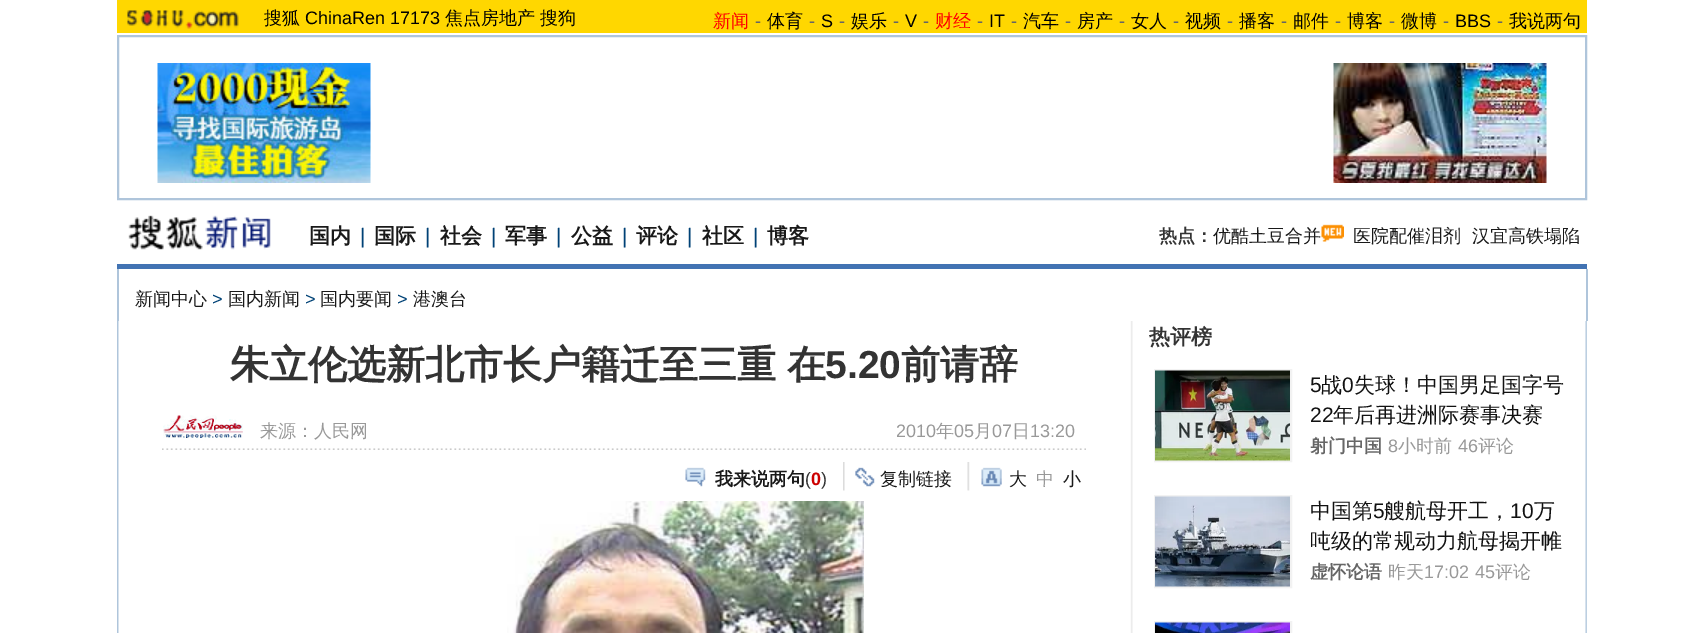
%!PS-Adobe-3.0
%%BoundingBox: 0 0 1703 633
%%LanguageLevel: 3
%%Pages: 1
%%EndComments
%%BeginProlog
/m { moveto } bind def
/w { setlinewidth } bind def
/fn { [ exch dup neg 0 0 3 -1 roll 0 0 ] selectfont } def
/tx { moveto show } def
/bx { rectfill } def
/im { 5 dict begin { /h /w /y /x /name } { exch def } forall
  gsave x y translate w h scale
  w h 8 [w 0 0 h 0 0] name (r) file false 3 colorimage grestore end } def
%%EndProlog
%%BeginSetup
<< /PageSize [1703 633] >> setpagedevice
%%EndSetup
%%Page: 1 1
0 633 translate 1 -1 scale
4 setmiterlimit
1 setgray
0 0 1703 633 bx
1 0.843 0 setrgbcolor
117 0 1470 33 bx
(image0.raw) 127 10 112 19 im
/WenQuanYiZenHei-Medium 18 fn
0 setgray
(搜狐) 264 24 tx
/LiberationSans-Regular 18 fn
(ChinaRen 17173) 305 24 tx
/WenQuanYiZenHei-Medium 18 fn
(焦点房地产) 445 24 tx
(搜狗) 540 24 tx
1 0 0 setrgbcolor
(新闻) 713 27 tx
/LiberationSans-Regular 18 fn
0.4 setgray
(-) 755 27 tx
/WenQuanYiZenHei-Medium 18 fn
0 setgray
(体育) 767 27 tx
/LiberationSans-Regular 18 fn
0.4 setgray
(-) 809 27 tx
0 setgray
(S) 821 27 tx
0.4 setgray
(-) 839 27 tx
/WenQuanYiZenHei-Medium 18 fn
0 setgray
(娱乐) 851 27 tx
/LiberationSans-Regular 18 fn
0.4 setgray
(-) 893 27 tx
0 setgray
(V) 905 27 tx
0.4 setgray
(-) 923 27 tx
/WenQuanYiZenHei-Medium 18 fn
1 0 0 setrgbcolor
(财经) 935 27 tx
/LiberationSans-Regular 18 fn
0.4 setgray
(-) 977 27 tx
0 setgray
(IT) 989 27 tx
0.4 setgray
(-) 1011 27 tx
/WenQuanYiZenHei-Medium 18 fn
0 setgray
(汽车) 1023 27 tx
/LiberationSans-Regular 18 fn
0.4 setgray
(-) 1065 27 tx
/WenQuanYiZenHei-Medium 18 fn
0 setgray
(房产) 1077 27 tx
/LiberationSans-Regular 18 fn
0.4 setgray
(-) 1119 27 tx
/WenQuanYiZenHei-Medium 18 fn
0 setgray
(女人) 1131 27 tx
/LiberationSans-Regular 18 fn
0.4 setgray
(-) 1173 27 tx
/WenQuanYiZenHei-Medium 18 fn
0 setgray
(视频) 1185 27 tx
/LiberationSans-Regular 18 fn
0.4 setgray
(-) 1227 27 tx
/WenQuanYiZenHei-Medium 18 fn
0 setgray
(播客) 1239 27 tx
/LiberationSans-Regular 18 fn
0.4 setgray
(-) 1281 27 tx
/WenQuanYiZenHei-Medium 18 fn
0 setgray
(邮件) 1293 27 tx
/LiberationSans-Regular 18 fn
0.4 setgray
(-) 1335 27 tx
/WenQuanYiZenHei-Medium 18 fn
0 setgray
(博客) 1347 27 tx
/LiberationSans-Regular 18 fn
0.4 setgray
(-) 1389 27 tx
/WenQuanYiZenHei-Medium 18 fn
0 setgray
(微博) 1401 27 tx
/LiberationSans-Regular 18 fn
0.4 setgray
(-) 1443 27 tx
0 setgray
(BBS) 1455 27 tx
0.4 setgray
(-) 1497 27 tx
/WenQuanYiZenHei-Medium 18 fn
0 setgray
(我说两句) 1509 27 tx
0.686 0.773 0.859 setrgbcolor
2 w
118 36 1468 163 rectstroke
(image1.raw) 157 63 214 120 im
(image2.raw) 1333 63 214 120 im
(image3.raw) 128 215 143 35 im
/WenQuanYiZenHei-Bold 21 fn
0.098 setgray
(国内) 309 243 tx
/LiberationSans-Regular 21 fn
0 0.259 0.463 setrgbcolor
(|) 360 243 tx
/WenQuanYiZenHei-Bold 21 fn
0.098 setgray
(国际) 374 243 tx
/LiberationSans-Regular 21 fn
0 0.259 0.463 setrgbcolor
(|) 425 243 tx
/WenQuanYiZenHei-Bold 21 fn
0.098 setgray
(社会) 440 243 tx
/LiberationSans-Regular 21 fn
0 0.259 0.463 setrgbcolor
(|) 491 243 tx
/WenQuanYiZenHei-Bold 21 fn
0.098 setgray
(军事) 505 243 tx
/LiberationSans-Regular 21 fn
0 0.259 0.463 setrgbcolor
(|) 556 243 tx
/WenQuanYiZenHei-Bold 21 fn
0.098 setgray
(公益) 571 243 tx
/LiberationSans-Regular 21 fn
0 0.259 0.463 setrgbcolor
(|) 622 243 tx
/WenQuanYiZenHei-Bold 21 fn
0.098 setgray
(评论) 636 243 tx
/LiberationSans-Regular 21 fn
0 0.259 0.463 setrgbcolor
(|) 687 243 tx
/WenQuanYiZenHei-Bold 21 fn
0.098 setgray
(社区) 702 243 tx
/LiberationSans-Regular 21 fn
0 0.259 0.463 setrgbcolor
(|) 753 243 tx
/WenQuanYiZenHei-Bold 21 fn
0.098 setgray
(博客) 767 243 tx
/WenQuanYiZenHei-Bold 18 fn
0.2 setgray
(热点：) 1159 242 tx
/WenQuanYiZenHei-Medium 18 fn
0.098 setgray
(优酷土豆合并) 1213 242 tx
(image4.raw) 1321 224 23 18 im
(医院配催泪剂) 1353 242 tx
(汉宜高铁塌陷) 1472 242 tx
0.259 0.451 0.702 setrgbcolor
117 264 1470 5 bx
0.686 0.773 0.859 setrgbcolor
1586 269 2 52 bx
117 269 2 52 bx
0.098 setgray
(新闻中心) 135 305 tx
/LiberationSans-Regular 18 fn
0 0.259 0.463 setrgbcolor
(>) 212 305 tx
/WenQuanYiZenHei-Medium 18 fn
0.098 setgray
(国内新闻) 228 305 tx
/LiberationSans-Regular 18 fn
0 0.259 0.463 setrgbcolor
(>) 305 305 tx
/WenQuanYiZenHei-Medium 18 fn
0.098 setgray
(国内要闻) 320 305 tx
/LiberationSans-Regular 18 fn
0 0.259 0.463 setrgbcolor
(>) 397 305 tx
/WenQuanYiZenHei-Medium 18 fn
0.098 setgray
(港澳台) 413 305 tx
(image5.raw) 117 321 1470 312 im
/WenQuanYiZenHei-Bold 39 fn
0.2 setgray
230 378 m -1 0 32 (朱立伦选新北市长户籍迁至三重 在) widthshow
/LiberationSans-Bold 39 fn
(5.20) 825 378 tx
/WenQuanYiZenHei-Bold 39 fn
(前请辞) 901 378 tx
(image6.raw) 163 415 80 23 im
/WenQuanYiZenHei-Medium 18 fn
0.6 setgray
(来源：人民网) 260 437 tx
/LiberationSans-Regular 18 fn
(2010) 896 437 tx
/WenQuanYiZenHei-Medium 18 fn
(年) 936 437 tx
/LiberationSans-Regular 18 fn
(05) 954 437 tx
/WenQuanYiZenHei-Medium 18 fn
(月) 974 437 tx
/LiberationSans-Regular 18 fn
(07) 992 437 tx
/WenQuanYiZenHei-Medium 18 fn
(日) 1012 437 tx
/LiberationSans-Regular 18 fn
(13:20) 1030 437 tx
(image7.raw) 162 448 924 2 im
(image8.raw) 685 467 21 20 im
/WenQuanYiZenHei-Bold 18 fn
0.098 setgray
(我来说两句) 715 485 tx
/LiberationSans-Regular 18 fn
0.2 setgray
(\() 805 485 tx
/LiberationSans-Bold 18 fn
0.8 0 0 setrgbcolor
(0) 811 485 tx
/LiberationSans-Regular 18 fn
0.2 setgray
(\)) 821 485 tx
(image9.raw) 843 462 32 29 im
/WenQuanYiZenHei-Medium 18 fn
0.098 setgray
(复制链接) 880 485 tx
(image10.raw) 967 462 35 29 im
(大) 1009 485 tx
0.6 setgray
(中) 1036 485 tx
0.098 setgray
(小) 1063 485 tx
(image11.raw) 507 501 357 132 im
/WenQuanYiZenHei-Bold 21 fn
0.2 setgray
(热评榜) 1149 344 tx
0.949 setgray
1155 370 136 91 rectstroke
(image12.raw) 1155 370 135 91 im
/LiberationSans-Regular 21 fn
0.067 setgray
(5) 1310 392 tx
/WenQuanYiZenHei-Medium 21 fn
(战) 1321 392 tx
/LiberationSans-Regular 21 fn
(0) 1342 392 tx
/WenQuanYiZenHei-Medium 21 fn
(失球！中国男足国字号) 1354 392 tx
/LiberationSans-Regular 21 fn
(22) 1310 422 tx
/WenQuanYiZenHei-Medium 21 fn
(年后再进洲际赛事决赛) 1333 422 tx
/WenQuanYiZenHei-Bold 18 fn
0.4 setgray
(射门中国) 1310 452 tx
/LiberationSans-Regular 18 fn
0.6 setgray
(8) 1388 452 tx
/WenQuanYiZenHei-Medium 18 fn
(小时前) 1398 452 tx
/LiberationSans-Regular 18 fn
(46) 1458 452 tx
/WenQuanYiZenHei-Medium 18 fn
(评论) 1478 452 tx
0.949 setgray
1155 496 136 91 rectstroke
(image13.raw) 1155 496 135 91 im
/WenQuanYiZenHei-Medium 21 fn
0.067 setgray
(中国第) 1310 518 tx
/LiberationSans-Regular 21 fn
(5) 1373 518 tx
/WenQuanYiZenHei-Medium 21 fn
(艘航母开工，) 1384 518 tx
/LiberationSans-Regular 21 fn
(10) 1510 518 tx
/WenQuanYiZenHei-Medium 21 fn
(万) 1534 518 tx
(吨级的常规动力航母揭开帷) 1310 548 tx
/WenQuanYiZenHei-Bold 18 fn
0.4 setgray
(虚怀论语) 1310 578 tx
/WenQuanYiZenHei-Medium 18 fn
0.6 setgray
(昨天) 1388 578 tx
/LiberationSans-Regular 18 fn
(17:02) 1424 578 tx
(45) 1475 578 tx
/WenQuanYiZenHei-Medium 18 fn
(评论) 1495 578 tx
0.949 setgray
1155 622 136 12 rectstroke
(image14.raw) 1155 622 135 11 im
showpage
%%EOF
